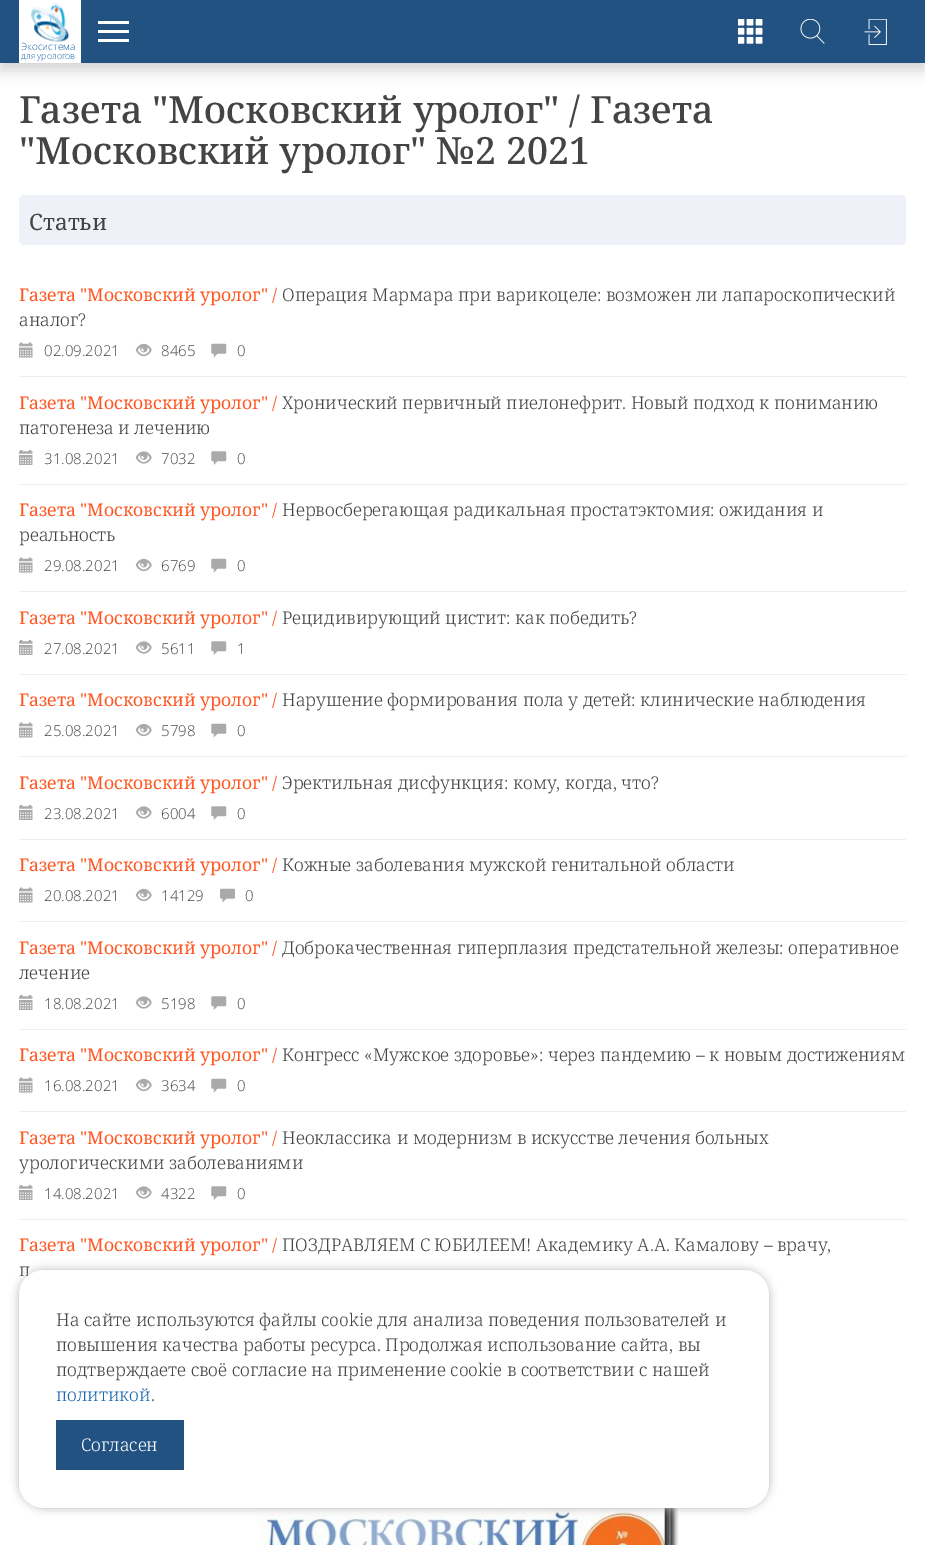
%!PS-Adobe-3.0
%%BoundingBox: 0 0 925 1545
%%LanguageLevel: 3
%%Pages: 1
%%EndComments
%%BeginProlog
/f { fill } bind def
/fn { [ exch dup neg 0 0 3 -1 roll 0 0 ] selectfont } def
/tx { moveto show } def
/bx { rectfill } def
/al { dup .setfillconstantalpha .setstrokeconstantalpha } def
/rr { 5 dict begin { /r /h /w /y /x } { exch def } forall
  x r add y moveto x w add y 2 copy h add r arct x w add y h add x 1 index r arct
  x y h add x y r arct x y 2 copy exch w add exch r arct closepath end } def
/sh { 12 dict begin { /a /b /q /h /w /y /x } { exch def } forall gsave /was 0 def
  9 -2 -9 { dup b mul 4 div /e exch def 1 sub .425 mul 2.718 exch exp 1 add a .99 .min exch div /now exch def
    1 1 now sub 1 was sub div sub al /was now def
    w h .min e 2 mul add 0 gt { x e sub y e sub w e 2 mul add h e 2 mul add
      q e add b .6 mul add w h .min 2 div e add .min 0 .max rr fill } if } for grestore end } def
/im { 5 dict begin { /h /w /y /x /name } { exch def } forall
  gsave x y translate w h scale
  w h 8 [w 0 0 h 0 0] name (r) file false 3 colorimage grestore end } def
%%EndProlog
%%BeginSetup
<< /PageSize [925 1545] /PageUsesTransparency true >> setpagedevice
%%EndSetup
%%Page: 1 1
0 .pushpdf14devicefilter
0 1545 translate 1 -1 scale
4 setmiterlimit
1 setgray
0 0 925 1545 bx
0 setgray
0 8 925 62 0 7.5 0.18 sh
0.133 0.322 0.51 setrgbcolor
0 0 925 63 bx
1 setgray
98 21 31 3 bx
98 30 31 3 bx
98 39 31 3 bx
(image0.raw) 738 19 25 25 im
(image1.raw) 800 19 25 25 im
(image2.raw) 864 19 23 26 im
19 0 62 63 bx
(image3.raw) 31 2 39 40 im
/OpenSans-Light 10 fn
0.118 0.404 0.686 setrgbcolor
(Экосистема) 21 50 tx
/OpenSans-Light 8.75 fn
(для урологов) 21 59 tx
/NotoSerif-Medium 37.5 fn
0.267 setgray
(Газета "Московский уролог" / Газета) 19 123 tx
("Московский уролог" №2 2021) 19 164 tx
0.933 0.945 0.969 setrgbcolor
19 195 887 50 5 rr f
/NotoSerif-Regular 22.5 fn
0.267 setgray
(Статьи) 29 230 tx
0.933 setgray
19 376 887 1 bx
/NotoSerif-Regular 17.5 fn
0.996 0.341 0.133 setrgbcolor
(Газета "Московский уролог" /) 19 301 tx
/NotoSerif-Light 17.5 fn
0.267 setgray
(Операция Мармара при варикоцеле: возможен ли лапароскопический) 282 301 tx
(аналог?) 19 326 tx
(image4.raw) 19 342 14 16 im
/OpenSans-Light 15 fn
(02.09.2021) 44 356 tx
(image5.raw) 135 343 17 14 im
(8465) 161 356 tx
(image6.raw) 211 343 16 15 im
(0) 237 356 tx
0.933 setgray
19 484 887 1 bx
/NotoSerif-Regular 17.5 fn
0.996 0.341 0.133 setrgbcolor
(Газета "Московский уролог" /) 19 409 tx
/NotoSerif-Light 17.5 fn
0.267 setgray
(Хронический первичный пиелонефрит. Новый подход к пониманию) 282 409 tx
(патогенеза и лечению) 19 434 tx
(image7.raw) 19 450 14 15 im
/OpenSans-Light 15 fn
(31.08.2021) 44 464 tx
(image8.raw) 135 451 17 13 im
(7032) 161 464 tx
(image9.raw) 211 451 16 14 im
(0) 237 464 tx
0.933 setgray
19 591 887 1 bx
/NotoSerif-Regular 17.5 fn
0.996 0.341 0.133 setrgbcolor
(Газета "Московский уролог" /) 19 516 tx
/NotoSerif-Light 17.5 fn
0.267 setgray
(Нервосберегающая радикальная простатэктомия: ожидания и) 282 516 tx
(реальность) 19 541 tx
(image4.raw) 19 557 14 16 im
/OpenSans-Light 15 fn
(29.08.2021) 44 571 tx
(image5.raw) 135 558 17 14 im
(6769) 161 571 tx
(image6.raw) 211 558 16 15 im
(0) 237 571 tx
0.933 setgray
19 674 887 1 bx
/NotoSerif-Regular 17.5 fn
0.996 0.341 0.133 setrgbcolor
(Газета "Московский уролог" /) 19 624 tx
/NotoSerif-Light 17.5 fn
0.267 setgray
(Рецидивирующий цистит: как победить?) 282 624 tx
(image7.raw) 19 640 14 15 im
/OpenSans-Light 15 fn
(27.08.2021) 44 654 tx
(image8.raw) 135 641 17 13 im
(5611) 161 654 tx
(image9.raw) 211 641 16 14 im
(1) 237 654 tx
0.933 setgray
19 756 887 1 bx
/NotoSerif-Regular 17.5 fn
0.996 0.341 0.133 setrgbcolor
(Газета "Московский уролог" /) 19 706 tx
/NotoSerif-Light 17.5 fn
0.267 setgray
(Нарушение формирования пола у детей: клинические наблюдения) 282 706 tx
(image4.raw) 19 722 14 16 im
/OpenSans-Light 15 fn
(25.08.2021) 44 736 tx
(image5.raw) 135 723 17 14 im
(5798) 161 736 tx
(image6.raw) 211 723 16 15 im
(0) 237 736 tx
0.933 setgray
19 839 887 1 bx
/NotoSerif-Regular 17.5 fn
0.996 0.341 0.133 setrgbcolor
(Газета "Московский уролог" /) 19 789 tx
/NotoSerif-Light 17.5 fn
0.267 setgray
(Эректильная дисфункция: кому, когда, что?) 282 789 tx
(image7.raw) 19 805 14 15 im
/OpenSans-Light 15 fn
(23.08.2021) 44 819 tx
(image8.raw) 135 806 17 13 im
(6004) 161 819 tx
(image9.raw) 211 806 16 14 im
(0) 237 819 tx
0.933 setgray
19 921 887 1 bx
/NotoSerif-Regular 17.5 fn
0.996 0.341 0.133 setrgbcolor
(Газета "Московский уролог" /) 19 871 tx
/NotoSerif-Light 17.5 fn
0.267 setgray
(Кожные заболевания мужской генитальной области) 282 871 tx
(image4.raw) 19 887 14 16 im
/OpenSans-Light 15 fn
(20.08.2021) 44 901 tx
(image5.raw) 135 888 17 14 im
(14129) 161 901 tx
(image10.raw) 220 888 15 15 im
(0) 245 901 tx
0.933 setgray
19 1029 887 1 bx
/NotoSerif-Regular 17.5 fn
0.996 0.341 0.133 setrgbcolor
(Газета "Московский уролог" /) 19 954 tx
/NotoSerif-Light 17.5 fn
0.267 setgray
(Доброкачественная гиперплазия предстательной железы: оперативное) 282 954 tx
(лечение) 19 979 tx
(image7.raw) 19 995 14 15 im
/OpenSans-Light 15 fn
(18.08.2021) 44 1009 tx
(image8.raw) 135 996 17 13 im
(5198) 161 1009 tx
(image9.raw) 211 996 16 14 im
(0) 237 1009 tx
0.933 setgray
19 1111 887 1 bx
/NotoSerif-Regular 17.5 fn
0.996 0.341 0.133 setrgbcolor
(Газета "Московский уролог" /) 19 1061 tx
/NotoSerif-Light 17.5 fn
0.267 setgray
(Конгресс «Мужское здоровье»: через пандемию – к новым достижениям) 282 1061 tx
(image4.raw) 19 1077 14 16 im
/OpenSans-Light 15 fn
(16.08.2021) 44 1091 tx
(image5.raw) 135 1078 17 14 im
(3634) 161 1091 tx
(image6.raw) 211 1078 16 15 im
(0) 237 1091 tx
0.933 setgray
19 1219 887 1 bx
/NotoSerif-Regular 17.5 fn
0.996 0.341 0.133 setrgbcolor
(Газета "Московский уролог" /) 19 1144 tx
/NotoSerif-Light 17.5 fn
0.267 setgray
(Неоклассика и модернизм в искусстве лечения больных) 282 1144 tx
(урологическими заболеваниями) 19 1169 tx
(image7.raw) 19 1185 14 15 im
/OpenSans-Light 15 fn
(14.08.2021) 44 1199 tx
(image8.raw) 135 1186 17 13 im
(4322) 161 1199 tx
(image9.raw) 211 1186 16 14 im
(0) 237 1199 tx
/NotoSerif-Regular 17.5 fn
0.996 0.341 0.133 setrgbcolor
(Газета "Московский уролог" /) 19 1251 tx
/NotoSerif-Light 17.5 fn
0.267 setgray
(ПОЗДРАВЛЯЕМ С ЮБИЛЕЕМ! Академику А.А. Камалову – врачу,) 282 1251 tx
(п) 19 1276 tx
(image11.raw) 19 1293 1 2 im
(image12.raw) 255 1508 410 37 im
(image13.raw) 268 1508 411 37 im
0.714 setgray
19 1270 750 238 25 4.5 1 sh
1 setgray
19 1270 750 238 25 rr f
0.267 setgray
(На сайте используются файлы cookie для анализа поведения пользователей и) 56 1326 tx
(повышения качества работы ресурса. Продолжая использование сайта, вы) 56 1351 tx
(подтверждаете своё согласие на применение cookie в соответствии с нашей) 56 1376 tx
0.118 0.404 0.686 setrgbcolor
(политикой) 56 1401 tx
0.267 setgray
(.) 151 1401 tx
0.133 0.322 0.51 setrgbcolor
56 1420 128 50 bx
1 setgray
(Согласен) 81 1451 tx
.poppdf14devicefilter showpage
%%EOF
